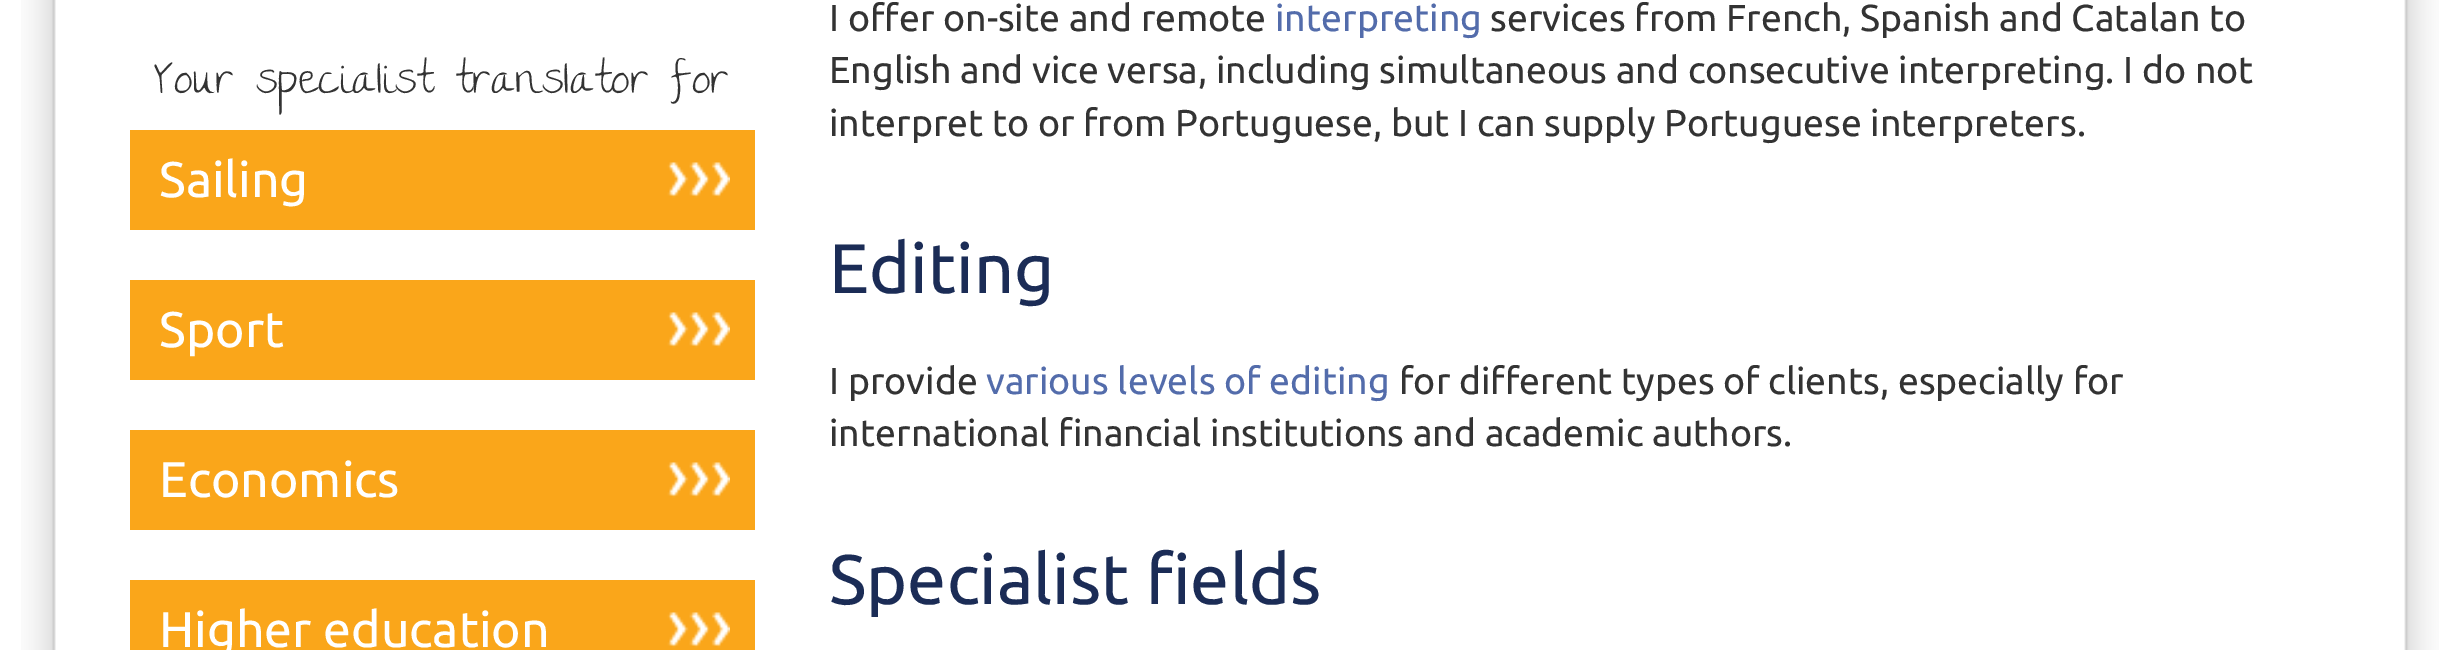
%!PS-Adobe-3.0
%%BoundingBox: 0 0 2456 650
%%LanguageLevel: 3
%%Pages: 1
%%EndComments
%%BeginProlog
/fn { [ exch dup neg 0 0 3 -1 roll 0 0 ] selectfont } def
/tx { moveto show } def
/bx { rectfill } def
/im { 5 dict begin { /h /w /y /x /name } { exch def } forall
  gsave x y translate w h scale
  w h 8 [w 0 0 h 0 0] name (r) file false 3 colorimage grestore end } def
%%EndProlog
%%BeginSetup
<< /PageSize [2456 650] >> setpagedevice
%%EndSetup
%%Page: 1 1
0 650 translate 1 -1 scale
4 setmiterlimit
1 setgray
0 0 2456 650 bx
(image0.raw) 21 0 2418 650 im
/TheGirlNextDoor-Regular 43.75 fn
0.2 setgray
(Your specialist translator for) 154 93 tx
0.98 0.651 0.102 setrgbcolor
130 130 625 100 bx
(image1.raw) 667 162 63 36 im
/Ubuntu-Regular 50 fn
1 setgray
(Sailing) 159 197 tx
0.98 0.651 0.102 setrgbcolor
130 280 625 100 bx
(image1.raw) 667 312 63 36 im
1 setgray
(Sport) 159 347 tx
0.98 0.651 0.102 setrgbcolor
130 430 625 100 bx
(image2.raw) 667 462 63 36 im
1 setgray
(Economics) 159 497 tx
0.98 0.651 0.102 setrgbcolor
130 580 625 70 bx
(image1.raw) 667 612 63 36 im
1 setgray
(Higher education) 159 647 tx
/Ubuntu-Regular 37.5 fn
0.2 setgray
(I offer on-site and remote) 829 31 tx
0.325 0.424 0.671 setrgbcolor
(interpreting) 1275 31 tx
0.2 setgray
(services from French, Spanish and Catalan to) 1490 31 tx
(English and vice versa, including simultaneous and consecutive interpreting. I do not) 829 83 tx
(interpret to or from Portuguese, but I can supply Portuguese interpreters.) 829 136 tx
/Ubuntu-Regular 70 fn
0.106 0.173 0.337 setrgbcolor
(Editing) 829 293 tx
/Ubuntu-Regular 37.5 fn
0.2 setgray
(I provide) 829 394 tx
0.325 0.424 0.671 setrgbcolor
(various levels of editing) 986 394 tx
0.2 setgray
(for different types of clients, especially for) 1399 394 tx
(international financial institutions and academic authors.) 829 446 tx
/Ubuntu-Regular 70 fn
0.106 0.173 0.337 setrgbcolor
(Specialist fields) 829 604 tx
showpage
%%EOF
